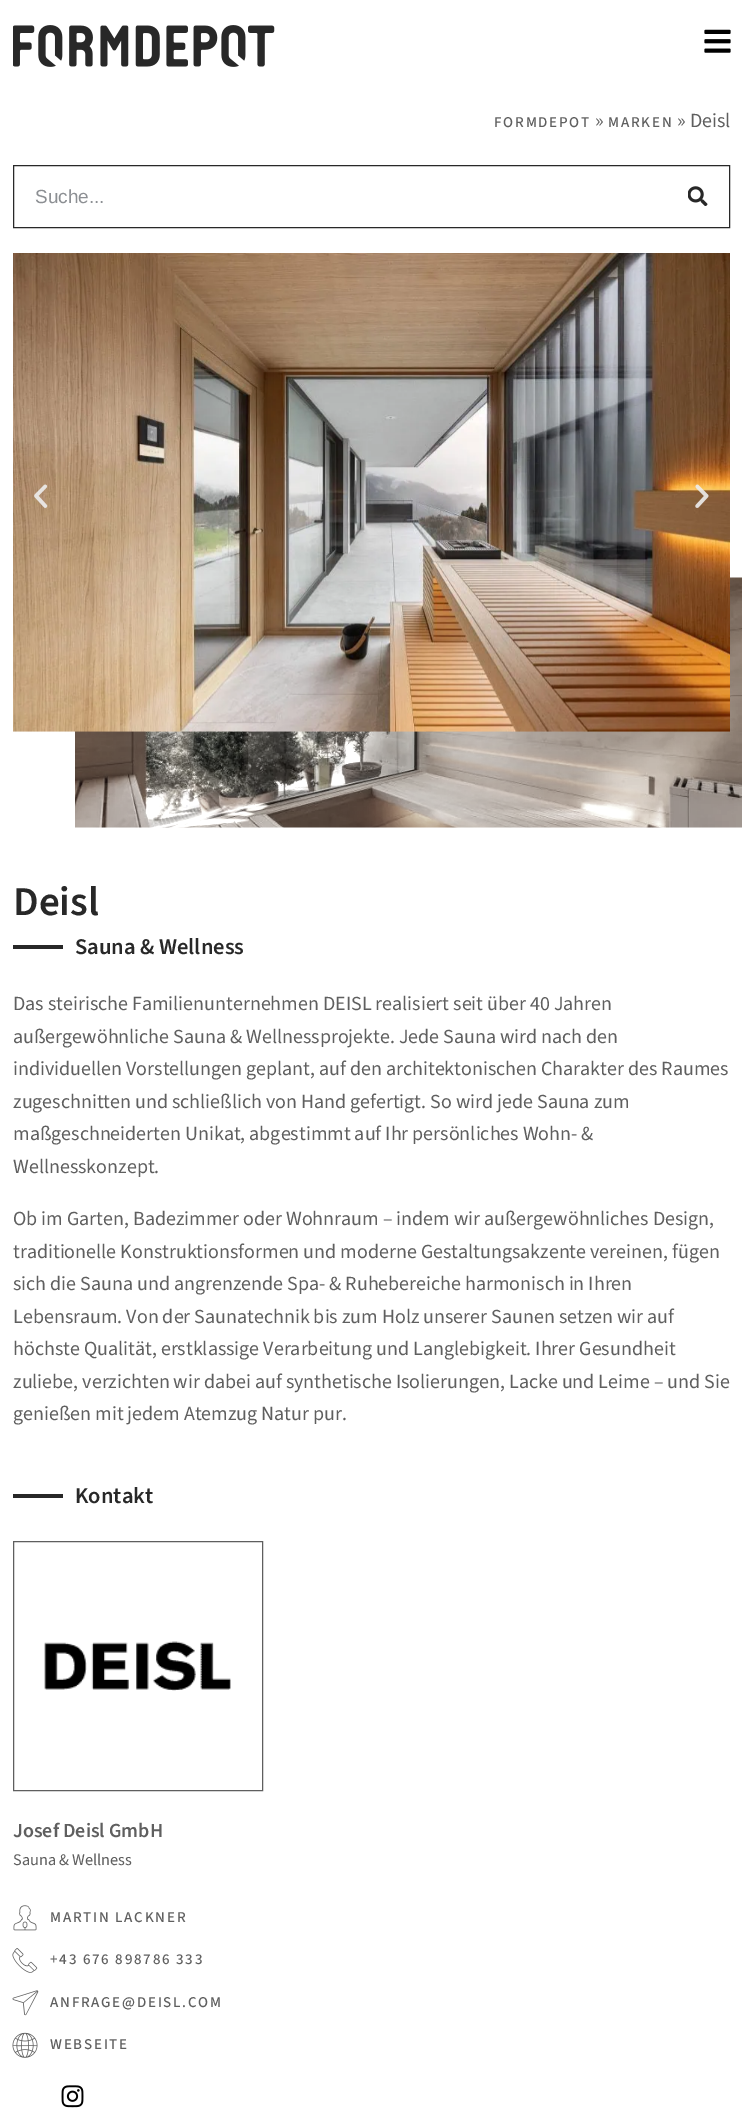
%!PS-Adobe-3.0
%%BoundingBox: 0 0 742 2120
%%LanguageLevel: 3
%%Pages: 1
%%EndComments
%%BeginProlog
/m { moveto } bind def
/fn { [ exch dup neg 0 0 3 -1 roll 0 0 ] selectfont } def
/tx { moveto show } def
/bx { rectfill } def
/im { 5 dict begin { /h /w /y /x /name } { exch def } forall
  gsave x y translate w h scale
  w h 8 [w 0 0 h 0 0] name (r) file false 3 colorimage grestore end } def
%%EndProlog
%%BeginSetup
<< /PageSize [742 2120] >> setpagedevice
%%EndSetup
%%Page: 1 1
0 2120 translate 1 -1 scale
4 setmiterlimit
1 setgray
0 0 742 2120 bx
(image0.raw) 13 25 262 42 im
(image1.raw) 704 29 27 24 im
/SourceSans3-ExtraLight 15 fn
0.373 setgray
494 127 m 1.75 0 (FORMDEPOT) ashow
/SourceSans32-ExtraLight 20 fn
(») 595 127 tx
/SourceSans3-ExtraLight 15 fn
608 127 m 1.75 0 (MARKEN) ashow
/SourceSans32-ExtraLight 20 fn
(» Deisl) 677 127 tx
0.157 setgray
13.5 165.5 716 62 rectstroke
/LiberationSans-Regular 19 fn
0.549 0.561 0.576 setrgbcolor
(Suche...) 35 203 tx
(image2.raw) 688 186 20 20 im
(image6.raw) 75 577 667 251 im
(image3.raw) 13 253 717 479 im
(image4.raw) 34 484 14 24 im
(image5.raw) 695 484 14 24 im
/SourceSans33-ExtraLight 41 fn
0.157 setgray
(Deisl) 13 915 tx
13 945 50 4 bx
/SourceSans33-ExtraLight 22.5 fn
(Sauna & Wellness) 75 954 tx
/SourceSans32-ExtraLight 20 fn
0.373 setgray
(Das steirische Familienunternehmen DEISL realisiert seit über 40 Jahren) 13 1010 tx
(außergewöhnliche Sauna & Wellnessprojekte. Jede Sauna wird nach den) 13 1043 tx
(individuellen Vorstellungen geplant, auf den architektonischen Charakter des Raumes) 13 1075 tx
(zugeschnitten und schließlich von Hand gefertigt. So wird jede Sauna zum) 13 1108 tx
(maßgeschneiderten Unikat, abgestimmt auf Ihr persönliches Wohn- &) 13 1140 tx
(Wellnesskonzept.) 13 1173 tx
(Ob im Garten, Badezimmer oder Wohnraum – indem wir außergewöhnliches Design,) 13 1225 tx
(traditionelle Konstruktionsformen und moderne Gestaltungsakzente vereinen, fügen) 13 1258 tx
(sich die Sauna und angrenzende Spa- & Ruhebereiche harmonisch in Ihren) 13 1290 tx
(Lebensraum. Von der Saunatechnik bis zum Holz unserer Saunen setzen wir auf) 13 1323 tx
(höchste Qualität, erstklassige Verarbeitung und Langlebigkeit. Ihrer Gesundheit) 13 1355 tx
(zuliebe, verzichten wir dabei auf synthetische Isolierungen, Lacke und Leime – und Sie) 13 1388 tx
(genießen mit jedem Atemzug Natur pur.) 13 1420 tx
0.157 setgray
13 1494 50 4 bx
/SourceSans33-ExtraLight 22.5 fn
(Kontakt) 75 1503 tx
0.373 setgray
13.5 1541.5 249 249 rectstroke
(image7.raw) 44 1641 187 50 im
/SourceSans33-ExtraLight 20 fn
(Josef Deisl GmbH) 13 1837 tx
/SourceSans32-ExtraLight 16.25 fn
(Sauna & Wellness) 13 1865 tx
(image8.raw) 13 1905 24 26 im
/SourceSans3-ExtraLight 15 fn
50 1922 m 1.75 0 (MARTIN LACKNER) ashow
(image9.raw) 12 1948 26 25 im
50 1964 m 1.75 0 (+43 676 898786 333) ashow
(image10.raw) 12 1990 27 26 im
50 2007 m 1.75 0 (ANFRAGE@DEISL.COM) ashow
(image11.raw) 12 2032 26 26 im
50 2049 m 1.75 0 (WEBSEITE) ashow
(image12.raw) 61 2085 23 23 im
showpage
%%EOF
